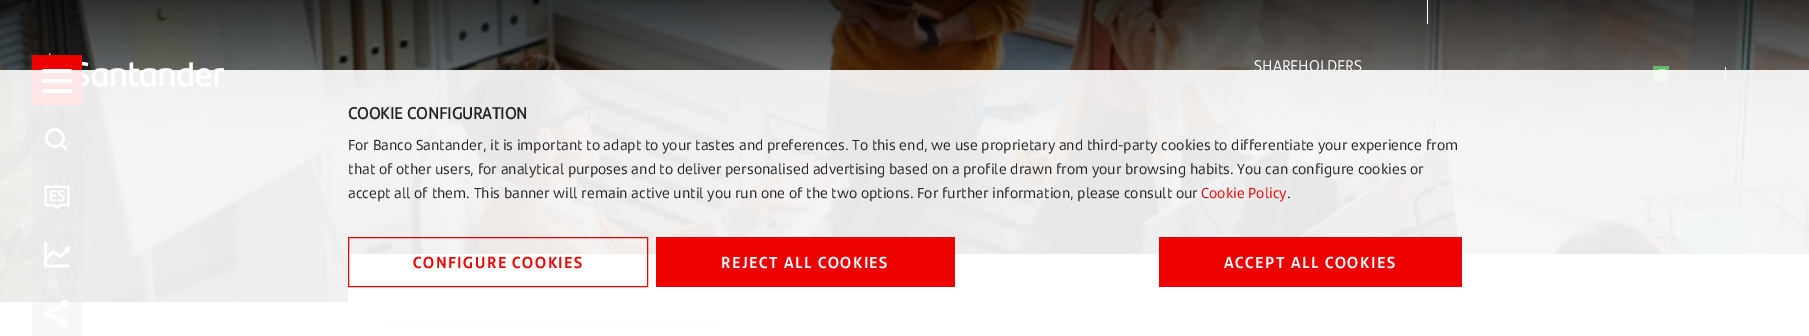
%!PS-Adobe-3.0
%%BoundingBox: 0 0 1809 336
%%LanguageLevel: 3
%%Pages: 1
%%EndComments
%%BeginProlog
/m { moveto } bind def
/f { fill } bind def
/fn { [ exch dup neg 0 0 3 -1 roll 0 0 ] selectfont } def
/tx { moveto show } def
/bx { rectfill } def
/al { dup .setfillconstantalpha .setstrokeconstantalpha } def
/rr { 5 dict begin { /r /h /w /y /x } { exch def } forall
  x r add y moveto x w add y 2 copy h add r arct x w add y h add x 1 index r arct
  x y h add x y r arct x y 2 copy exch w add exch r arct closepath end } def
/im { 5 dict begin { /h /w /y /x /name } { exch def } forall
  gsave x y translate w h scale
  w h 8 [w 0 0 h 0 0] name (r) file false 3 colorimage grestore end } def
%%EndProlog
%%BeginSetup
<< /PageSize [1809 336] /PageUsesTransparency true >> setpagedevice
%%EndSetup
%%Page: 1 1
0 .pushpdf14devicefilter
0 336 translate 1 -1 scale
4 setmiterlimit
1 setgray
0 0 1809 336 bx
(image0.raw) 0 0 1809 302 im
(image5.raw) 49 52 175 35 im
0.925 0 0 setrgbcolor
32 55 50 51 bx
1 setgray
42 69 30 4 2 rr f
42 79 30 4 2 rr f
42 89 30 4 2 rr f
0.3 al
0 setgray
32 114 50 50 bx
1 al
(image1.raw) 44 128 24 23 im
0.3 al
32 172 50 50 bx
1 al
(image2.raw) 44 185 26 25 im
0.3 al
32 230 50 50 bx
1 al
(image3.raw) 44 241 26 27 im
0.3 al
32 288 50 48 bx
1 al
(image4.raw) 44 299 25 28 im
1 setgray
1427 0 1 24 bx
/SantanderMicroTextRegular-Regular 15 fn
(SHAREHOLDERS) 1254 71 tx
0.388 0.729 0.408 setrgbcolor
1653 66 16 16 bx
1 setgray
1725 67 1 15 bx
(image6.raw) 1656 69 10 9 im
348 254 1461 48 bx
0.808 0.871 0.906 setrgbcolor
380 322 344 1 bx
0.9 al
1 setgray
0 70 1809 266 bx
/SantanderMicroTextRegular-Bold 16 fn
1 al
0.133 setgray
(COOKIE CONFIGURATION) 348 119 tx
/SantanderMicroTextRegular-Regular 14 fn
(For Banco Santander, it is important to adapt to your tastes and preferences. To this end, we use proprietary and third-party cookies to differentiate your experience from) 348 150 tx
(that of other users, for analytical purposes and to deliver personalised advertising based on a profile drawn from your browsing habits. You can configure cookies or) 348 174 tx
(accept all of them. This banner will remain active until you run one of the two options. For further information, please consult our) 348 198 tx
0.925 0 0 setrgbcolor
(Cookie Policy) 1201 198 tx
0.133 setgray
(.) 1287 198 tx
0.925 0 0 setrgbcolor
348.5 237.5 299 49 rectstroke
/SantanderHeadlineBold-Bold 16 fn
413 268 m 1.6 0 (CONFIGURE COOKIES) ashow
656 237 299 50 bx
1 setgray
721 268 m 1.6 0 (REJECT ALL COOKIES) ashow
0.925 0 0 setrgbcolor
1159 237 303 50 bx
1 setgray
1224 268 m 1.6 0 (ACCEPT ALL COOKIES) ashow
.poppdf14devicefilter showpage
%%EOF
